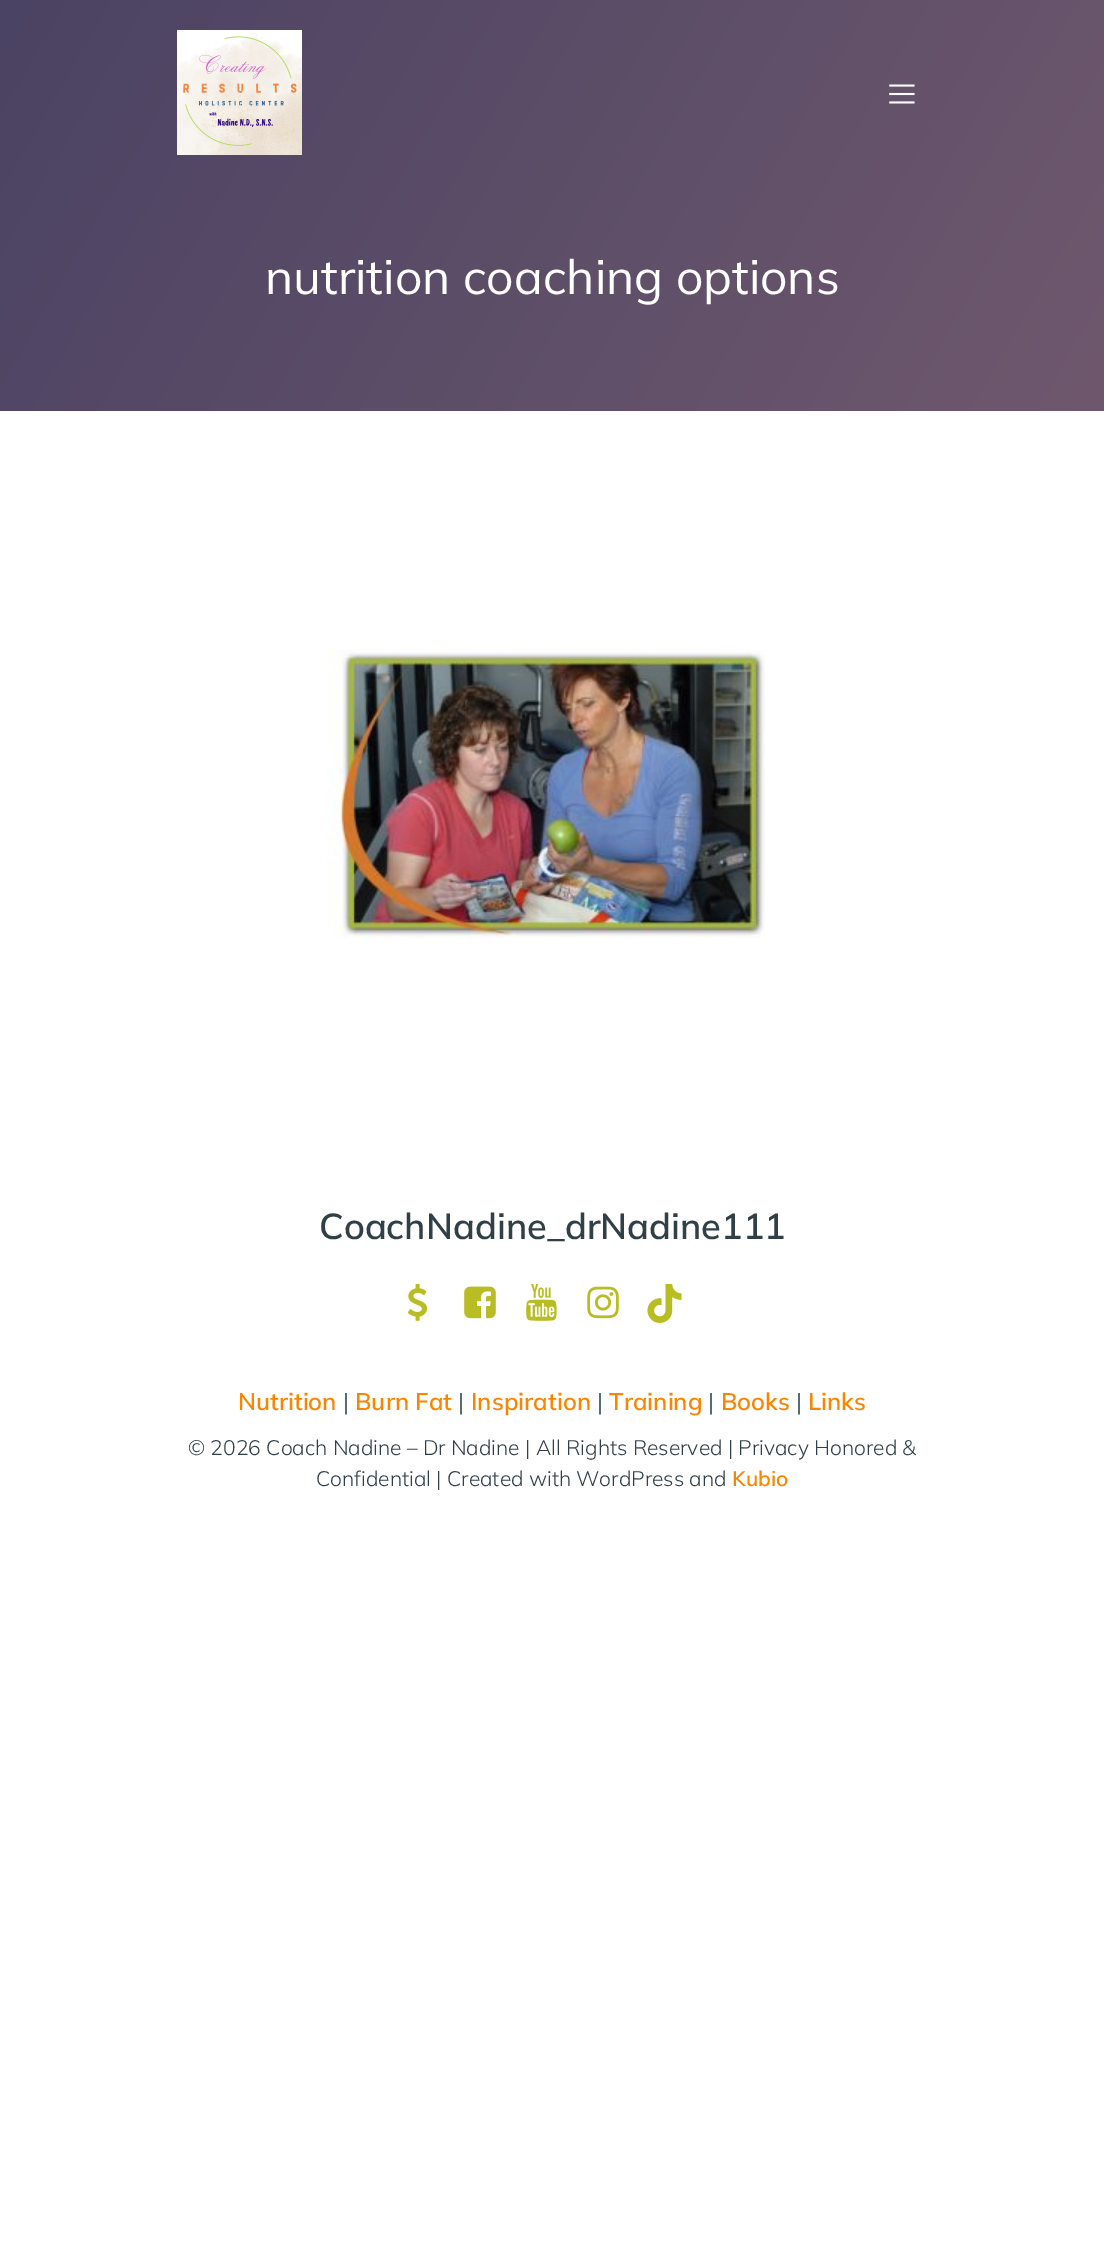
%!PS-Adobe-3.0
%%BoundingBox: 0 0 1104 2250
%%LanguageLevel: 3
%%Pages: 1
%%EndComments
%%BeginProlog
/m { moveto } bind def
/l { lineto } bind def
/h { closepath } bind def
/q { gsave } bind def
/Q { grestore } bind def
/fn { [ exch dup neg 0 0 3 -1 roll 0 0 ] selectfont } def
/tx { moveto show } def
/bx { rectfill } def
/im { 5 dict begin { /h /w /y /x /name } { exch def } forall
  gsave x y translate w h scale
  w h 8 [w 0 0 h 0 0] name (r) file false 3 colorimage grestore end } def
%%EndProlog
%%BeginSetup
<< /PageSize [1104 2250] >> setpagedevice
%%EndSetup
%%Page: 1 1
0 2250 translate 1 -1 scale
4 setmiterlimit
1 setgray
0 0 1104 2250 bx
q 0 0 m 1104 0 l 1104 411 l 0 411 l h clip newpath
<< /ShadingType 2 /ColorSpace /DeviceRGB /Coords [49 -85 1055 496] /Extend [true true] /Function << /FunctionType 2 /Domain [0 1] /C0 [0.294 0.263 0.388] /C1 [0.435 0.345 0.431] /N 1 >> >> shfill Q
(image0.raw) 177 30 125 125 im
(image1.raw) 889 84 26 20 im
/Mulish-Regular 48 fn
(nutrition coaching options) 265 294 tx
(image2.raw) 327 649 438 290 im
/Mulish-SemiBold 36 fn
0.192 0.247 0.275 setrgbcolor
(CoachNadine_drNadine111) 319 1239 tx
(image3.raw) 407 1284 20 37 im
(image4.raw) 464 1286 32 33 im
(image5.raw) 526 1284 31 37 im
(image6.raw) 587 1286 32 33 im
(image7.raw) 647 1284 35 39 im
/Mulish-SemiBold 24 fn
0.984 0.522 0 setrgbcolor
(Nutrition) 238 1410 tx
/Mulish-Light 24 fn
0.098 0.216 0.275 setrgbcolor
(|) 343 1410 tx
/Mulish-SemiBold 24 fn
0.984 0.522 0 setrgbcolor
(Burn Fat) 355 1410 tx
/Mulish-Light 24 fn
0.098 0.216 0.275 setrgbcolor
(|) 458 1410 tx
/Mulish-SemiBold 24 fn
0.984 0.522 0 setrgbcolor
(Inspiration) 471 1410 tx
/Mulish-Light 24 fn
0.098 0.216 0.275 setrgbcolor
(|) 597 1410 tx
/Mulish-SemiBold 24 fn
0.984 0.522 0 setrgbcolor
(Training) 609 1410 tx
/Mulish-Light 24 fn
0.098 0.216 0.275 setrgbcolor
(|) 708 1410 tx
/Mulish-SemiBold 24 fn
0.984 0.522 0 setrgbcolor
(Books) 721 1410 tx
/Mulish-Light 24 fn
0.098 0.216 0.275 setrgbcolor
(|) 796 1410 tx
/Mulish-SemiBold 24 fn
0.984 0.522 0 setrgbcolor
(Links) 808 1410 tx
/Mulish-Light 21 fn
0.192 0.247 0.275 setrgbcolor
(© 2026 Coach Nadine – Dr Nadine | All Rights Reserved | Privacy Honored &) 188 1455 tx
(Confidential | Created with WordPress and) 316 1486 tx
/Mulish-SemiBold 21 fn
0.984 0.522 0 setrgbcolor
(Kubio) 732 1486 tx
showpage
%%EOF
